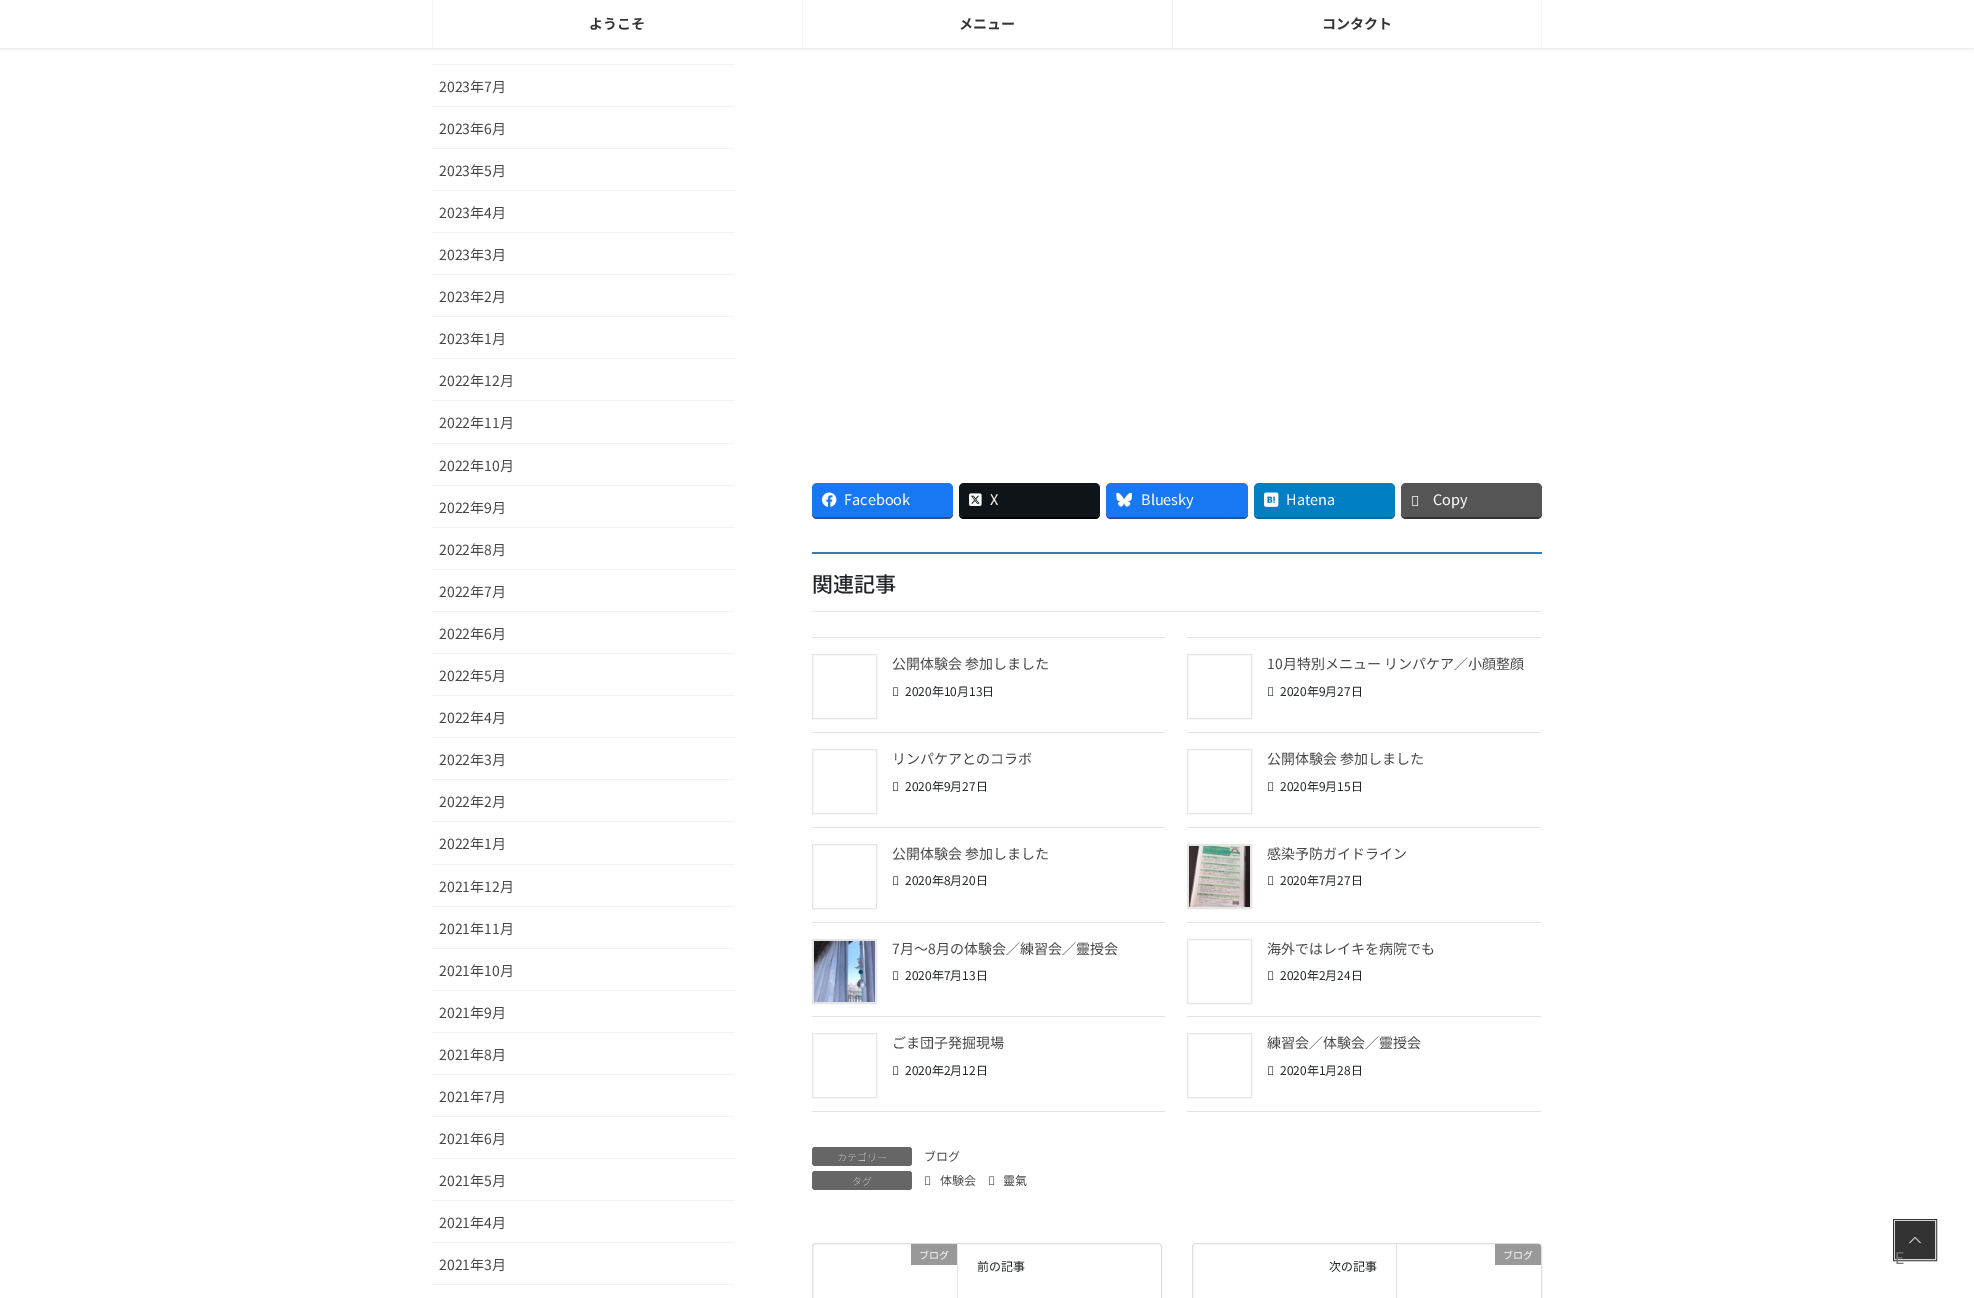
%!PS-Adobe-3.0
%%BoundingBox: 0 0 1974 1298
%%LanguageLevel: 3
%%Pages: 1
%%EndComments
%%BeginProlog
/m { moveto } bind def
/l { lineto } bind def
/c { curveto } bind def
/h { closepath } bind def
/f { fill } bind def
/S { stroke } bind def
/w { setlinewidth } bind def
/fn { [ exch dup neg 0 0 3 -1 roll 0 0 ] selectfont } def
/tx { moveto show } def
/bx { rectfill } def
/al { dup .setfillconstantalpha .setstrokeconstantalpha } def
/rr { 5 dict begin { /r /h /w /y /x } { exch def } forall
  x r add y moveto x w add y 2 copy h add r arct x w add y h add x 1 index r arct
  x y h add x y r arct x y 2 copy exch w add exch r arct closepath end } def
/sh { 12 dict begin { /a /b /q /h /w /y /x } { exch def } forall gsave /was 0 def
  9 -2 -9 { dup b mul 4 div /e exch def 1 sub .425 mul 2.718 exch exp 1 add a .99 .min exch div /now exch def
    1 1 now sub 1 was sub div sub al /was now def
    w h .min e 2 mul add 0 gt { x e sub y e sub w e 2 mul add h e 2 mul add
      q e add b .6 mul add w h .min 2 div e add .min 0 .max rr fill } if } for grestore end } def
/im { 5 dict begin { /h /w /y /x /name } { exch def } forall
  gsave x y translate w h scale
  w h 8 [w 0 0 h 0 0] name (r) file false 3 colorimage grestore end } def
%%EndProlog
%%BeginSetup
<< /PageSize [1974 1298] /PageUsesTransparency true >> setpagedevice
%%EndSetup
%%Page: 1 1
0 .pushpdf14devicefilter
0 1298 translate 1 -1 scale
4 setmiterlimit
1 setgray
0 0 1974 1298 bx
0 setgray
0 1 1974 48 0 1.5 0.1 sh
1 setgray
0 0 1974 48 bx
0.961 setgray
432 0 1 48 bx
/NotoSansJP-Bold 14 fn
0.2 setgray
(ようこそ) 589 29 tx
0.961 setgray
802 0 1 48 bx
0.2 setgray
(メニュー) 959 29 tx
0.961 setgray
1541 0 1 48 bx
1172 0 1 48 bx
0.2 setgray
(コンタクト) 1322 29 tx
0.949 setgray
432 64 302 1 bx
432 106 302 1 bx
/NotoSansJP-Regular 14 fn
0.275 setgray
(2023年7月) 439 92 tx
0.949 setgray
432 148 302 1 bx
0.275 setgray
(2023年6月) 439 134 tx
0.949 setgray
432 190 302 1 bx
0.275 setgray
(2023年5月) 439 176 tx
0.949 setgray
432 232 302 1 bx
0.275 setgray
(2023年4月) 439 218 tx
0.949 setgray
432 274 302 1 bx
0.275 setgray
(2023年3月) 439 260 tx
0.949 setgray
432 316 302 1 bx
0.275 setgray
(2023年2月) 439 302 tx
0.949 setgray
432 358 302 1 bx
0.275 setgray
(2023年1月) 439 344 tx
0.949 setgray
432 400 302 1 bx
0.275 setgray
(2022年12月) 439 386 tx
0.949 setgray
432 443 302 1 bx
0.275 setgray
(2022年11月) 439 428 tx
0.949 setgray
432 485 302 1 bx
0.275 setgray
(2022年10月) 439 471 tx
0.949 setgray
432 527 302 1 bx
0.275 setgray
(2022年9月) 439 513 tx
0.949 setgray
432 569 302 1 bx
0.275 setgray
(2022年8月) 439 555 tx
0.949 setgray
432 611 302 1 bx
0.275 setgray
(2022年7月) 439 597 tx
0.949 setgray
432 653 302 1 bx
0.275 setgray
(2022年6月) 439 639 tx
0.949 setgray
432 695 302 1 bx
0.275 setgray
(2022年5月) 439 681 tx
0.949 setgray
432 737 302 1 bx
0.275 setgray
(2022年4月) 439 723 tx
0.949 setgray
432 779 302 1 bx
0.275 setgray
(2022年3月) 439 765 tx
0.949 setgray
432 821 302 1 bx
0.275 setgray
(2022年2月) 439 807 tx
0.949 setgray
432 864 302 1 bx
0.275 setgray
(2022年1月) 439 849 tx
0.949 setgray
432 906 302 1 bx
0.275 setgray
(2021年12月) 439 892 tx
0.949 setgray
432 948 302 1 bx
0.275 setgray
(2021年11月) 439 934 tx
0.949 setgray
432 990 302 1 bx
0.275 setgray
(2021年10月) 439 976 tx
0.949 setgray
432 1032 302 1 bx
0.275 setgray
(2021年9月) 439 1018 tx
0.949 setgray
432 1074 302 1 bx
0.275 setgray
(2021年8月) 439 1060 tx
0.949 setgray
432 1116 302 1 bx
0.275 setgray
(2021年7月) 439 1102 tx
0.949 setgray
432 1158 302 1 bx
0.275 setgray
(2021年6月) 439 1144 tx
0.949 setgray
432 1200 302 1 bx
0.275 setgray
(2021年5月) 439 1186 tx
0.949 setgray
432 1242 302 1 bx
0.275 setgray
(2021年4月) 439 1228 tx
0.949 setgray
432 1284 302 1 bx
0.275 setgray
(2021年3月) 439 1270 tx
0.204 0.306 0.518 setrgbcolor
812 512 m 812 514 l 812 517 814 519 817 519 c 948 519 l 951 519 953 517 953 514 c 953 512 l 953 515 951 517 948 517 c 817 517 l 814 517 812 515 812 512 c h f
0.094 0.467 0.949 setrgbcolor
812 483 141 34 5 rr f
(image0.raw) 822 492 15 15 im
/NotoSansJP-Regular 14.5 fn
1 setgray
(Facebook) 844 505 tx
0 setgray
959 512 m 959 514 l 959 517 961 519 964 519 c 1095 519 l 1098 519 1100 517 1100 514 c 1100 512 l 1100 515 1098 517 1095 517 c 964 517 l 961 517 959 515 959 512 c h f
0.059 0.078 0.098 setrgbcolor
959 483 141 34 5 rr f
(image1.raw) 969 493 13 13 im
1 setgray
(X) 990 505 tx
0.204 0.306 0.518 setrgbcolor
1106 512 m 1106 514 l 1106 517 1108 519 1111 519 c 1243 519 l 1246 519 1248 517 1248 514 c 1248 512 l 1248 515 1246 517 1243 517 c 1111 517 l 1108 517 1106 515 1106 512 c h f
0.094 0.467 0.949 setrgbcolor
1106 483 142 34 5 rr f
(image2.raw) 1116 492 16 15 im
1 setgray
(Bluesky) 1141 505 tx
0 0.404 0.624 setrgbcolor
1254 512 m 1254 514 l 1254 517 1256 519 1259 519 c 1390 519 l 1393 519 1395 517 1395 514 c 1395 512 l 1395 515 1393 517 1390 517 c 1259 517 l 1256 517 1254 515 1254 512 c h f
0 0.498 0.773 setrgbcolor
1254 483 141 34 5 rr f
(image3.raw) 1264 492 15 15 im
1 setgray
(Hatena) 1286 505 tx
0.2 setgray
1401 512 m 1401 514 l 1401 517 1403 519 1406 519 c 1537 519 l 1540 519 1542 517 1542 514 c 1542 512 l 1542 515 1540 517 1537 517 c 1406 517 l 1403 517 1401 515 1401 512 c h f
0.333 setgray
1401 483 141 34 5 rr f
(image4.raw) 1412 496 7 10 im
1 setgray
(Copy) 1433 505 tx
0.204 0.49 0.737 setrgbcolor
812 552 730 2 bx
0.914 setgray
812 611 730 1 bx
/NotoSansJP-Medium 21 fn
0.129 0.145 0.161 setrgbcolor
(関連記事) 812 592 tx
0.898 setgray
812 637 353 1 bx
812 732 353 1 bx
812.5 654.5 64 64 rectstroke
/NotoSansJP-Regular 14 fn
0.275 setgray
(公開体験会 参加しました) 892 669 tx
(image5.raw) 893 687 6 9 im
/NotoSansJP-Regular 12 fn
0.129 0.145 0.161 setrgbcolor
(2020年10月13日) 905 696 tx
0.898 setgray
1187 637 354 1 bx
1187 732 354 1 bx
1187.5 654.5 64 64 rectstroke
/NotoSansJP-Regular 14 fn
0.275 setgray
(10月特別メニュー リンパケア／小顔整顔) 1267 669 tx
(image5.raw) 1268 687 6 9 im
/NotoSansJP-Regular 12 fn
0.129 0.145 0.161 setrgbcolor
(2020年9月27日) 1280 696 tx
0.898 setgray
812 827 353 1 bx
812.5 749.5 64 64 rectstroke
/NotoSansJP-Regular 14 fn
0.275 setgray
(リンパケアとのコラボ) 892 764 tx
(image5.raw) 893 782 6 9 im
/NotoSansJP-Regular 12 fn
0.129 0.145 0.161 setrgbcolor
(2020年9月27日) 905 791 tx
0.898 setgray
1187 827 354 1 bx
1187.5 749.5 64 64 rectstroke
/NotoSansJP-Regular 14 fn
0.275 setgray
(公開体験会 参加しました) 1267 764 tx
(image5.raw) 1268 782 6 9 im
/NotoSansJP-Regular 12 fn
0.129 0.145 0.161 setrgbcolor
(2020年9月15日) 1280 791 tx
0.898 setgray
812 922 353 1 bx
812.5 844.5 64 64 rectstroke
/NotoSansJP-Regular 14 fn
0.275 setgray
(公開体験会 参加しました) 892 859 tx
(image5.raw) 893 876 6 9 im
/NotoSansJP-Regular 12 fn
0.129 0.145 0.161 setrgbcolor
(2020年8月20日) 905 885 tx
0.898 setgray
1187 922 354 1 bx
1187.5 844.5 64 64 rectstroke
1188.5 845.5 62 62 rectstroke
(image6.raw) 1189 846 61 61 im
/NotoSansJP-Regular 14 fn
0.275 setgray
(感染予防ガイドライン) 1267 859 tx
(image5.raw) 1268 876 6 9 im
/NotoSansJP-Regular 12 fn
0.129 0.145 0.161 setrgbcolor
(2020年7月27日) 1280 885 tx
0.898 setgray
812 1016 353 1 bx
812.5 939.5 64 64 rectstroke
813.5 940.5 62 62 rectstroke
(image7.raw) 814 941 61 61 im
/NotoSansJP-Regular 14 fn
0.275 setgray
(7月～8月の体験会／練習会／靈授会) 892 954 tx
(image5.raw) 893 971 6 9 im
/NotoSansJP-Regular 12 fn
0.129 0.145 0.161 setrgbcolor
(2020年7月13日) 905 980 tx
0.898 setgray
1187 1016 354 1 bx
1187.5 939.5 64 64 rectstroke
/NotoSansJP-Regular 14 fn
0.275 setgray
(海外ではレイキを病院でも) 1267 954 tx
(image5.raw) 1268 971 6 9 im
/NotoSansJP-Regular 12 fn
0.129 0.145 0.161 setrgbcolor
(2020年2月24日) 1280 980 tx
0.898 setgray
812 1111 353 1 bx
812.5 1033.5 64 64 rectstroke
/NotoSansJP-Regular 14 fn
0.275 setgray
(ごま団子発掘現場) 892 1048 tx
(image5.raw) 893 1066 6 9 im
/NotoSansJP-Regular 12 fn
0.129 0.145 0.161 setrgbcolor
(2020年2月12日) 905 1075 tx
0.898 setgray
1187 1111 354 1 bx
1187.5 1033.5 64 64 rectstroke
/NotoSansJP-Regular 14 fn
0.275 setgray
(練習会／体験会／靈授会) 1267 1048 tx
(image5.raw) 1268 1066 6 9 im
/NotoSansJP-Regular 12 fn
0.129 0.145 0.161 setrgbcolor
(2020年1月28日) 1280 1075 tx
0.4 setgray
812 1147 100 19 3 rr f
/NotoSansJP-Thin 10 fn
1 setgray
(カテゴリー) 837 1161 tx
/NotoSansJP-Regular 12 fn
0.275 setgray
(ブログ) 924 1161 tx
0.4 setgray
812 1171 100 19 3 rr f
/NotoSansJP-Thin 10 fn
1 setgray
(タグ) 852 1185 tx
(image8.raw) 925 1176 6 9 im
/NotoSansJP-Regular 12 fn
0.275 setgray
(体験会) 940 1185 tx
(image8.raw) 989 1176 6 9 im
(靈氣) 1003 1185 tx
0.875 setgray
812.5 1243.5 349 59 3.5 rr S
0.898 setgray
957 1244 1 54 bx
0.6 setgray
911 1244 46 21 bx
/NotoSansJP-Regular 10 fn
1 setgray
(ブログ) 919 1259 tx
/NotoSansJP-Regular 12 fn
0.129 0.145 0.161 setrgbcolor
(前の記事) 977 1271 tx
0.875 setgray
1192.5 1243.5 349 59 3.5 rr S
0.898 setgray
1396 1244 1 54 bx
0.6 setgray
1495 1244 m 1538 1244 l 1539.5 1244 1541 1245.5 1541 1247 c 1541 1265 l 1495 1265 l h f
/NotoSansJP-Regular 10 fn
1 setgray
(ブログ) 1503 1259 tx
/NotoSansJP-Regular 12 fn
0.129 0.145 0.161 setrgbcolor
(次の記事) 1329 1271 tx
0.2 setgray
2 w
1894 1220 42 40 rectstroke
0.839 setgray
1 w
1894.5 1220.5 41 39 rectstroke
0.2 setgray
1895 1221 40 38 bx
(image9.raw) 1909 1237 12 7 im
/NotoSansJP-Regular 16 fn
0.471 setgray
(E) 1895 1264 tx
.poppdf14devicefilter showpage
%%EOF
